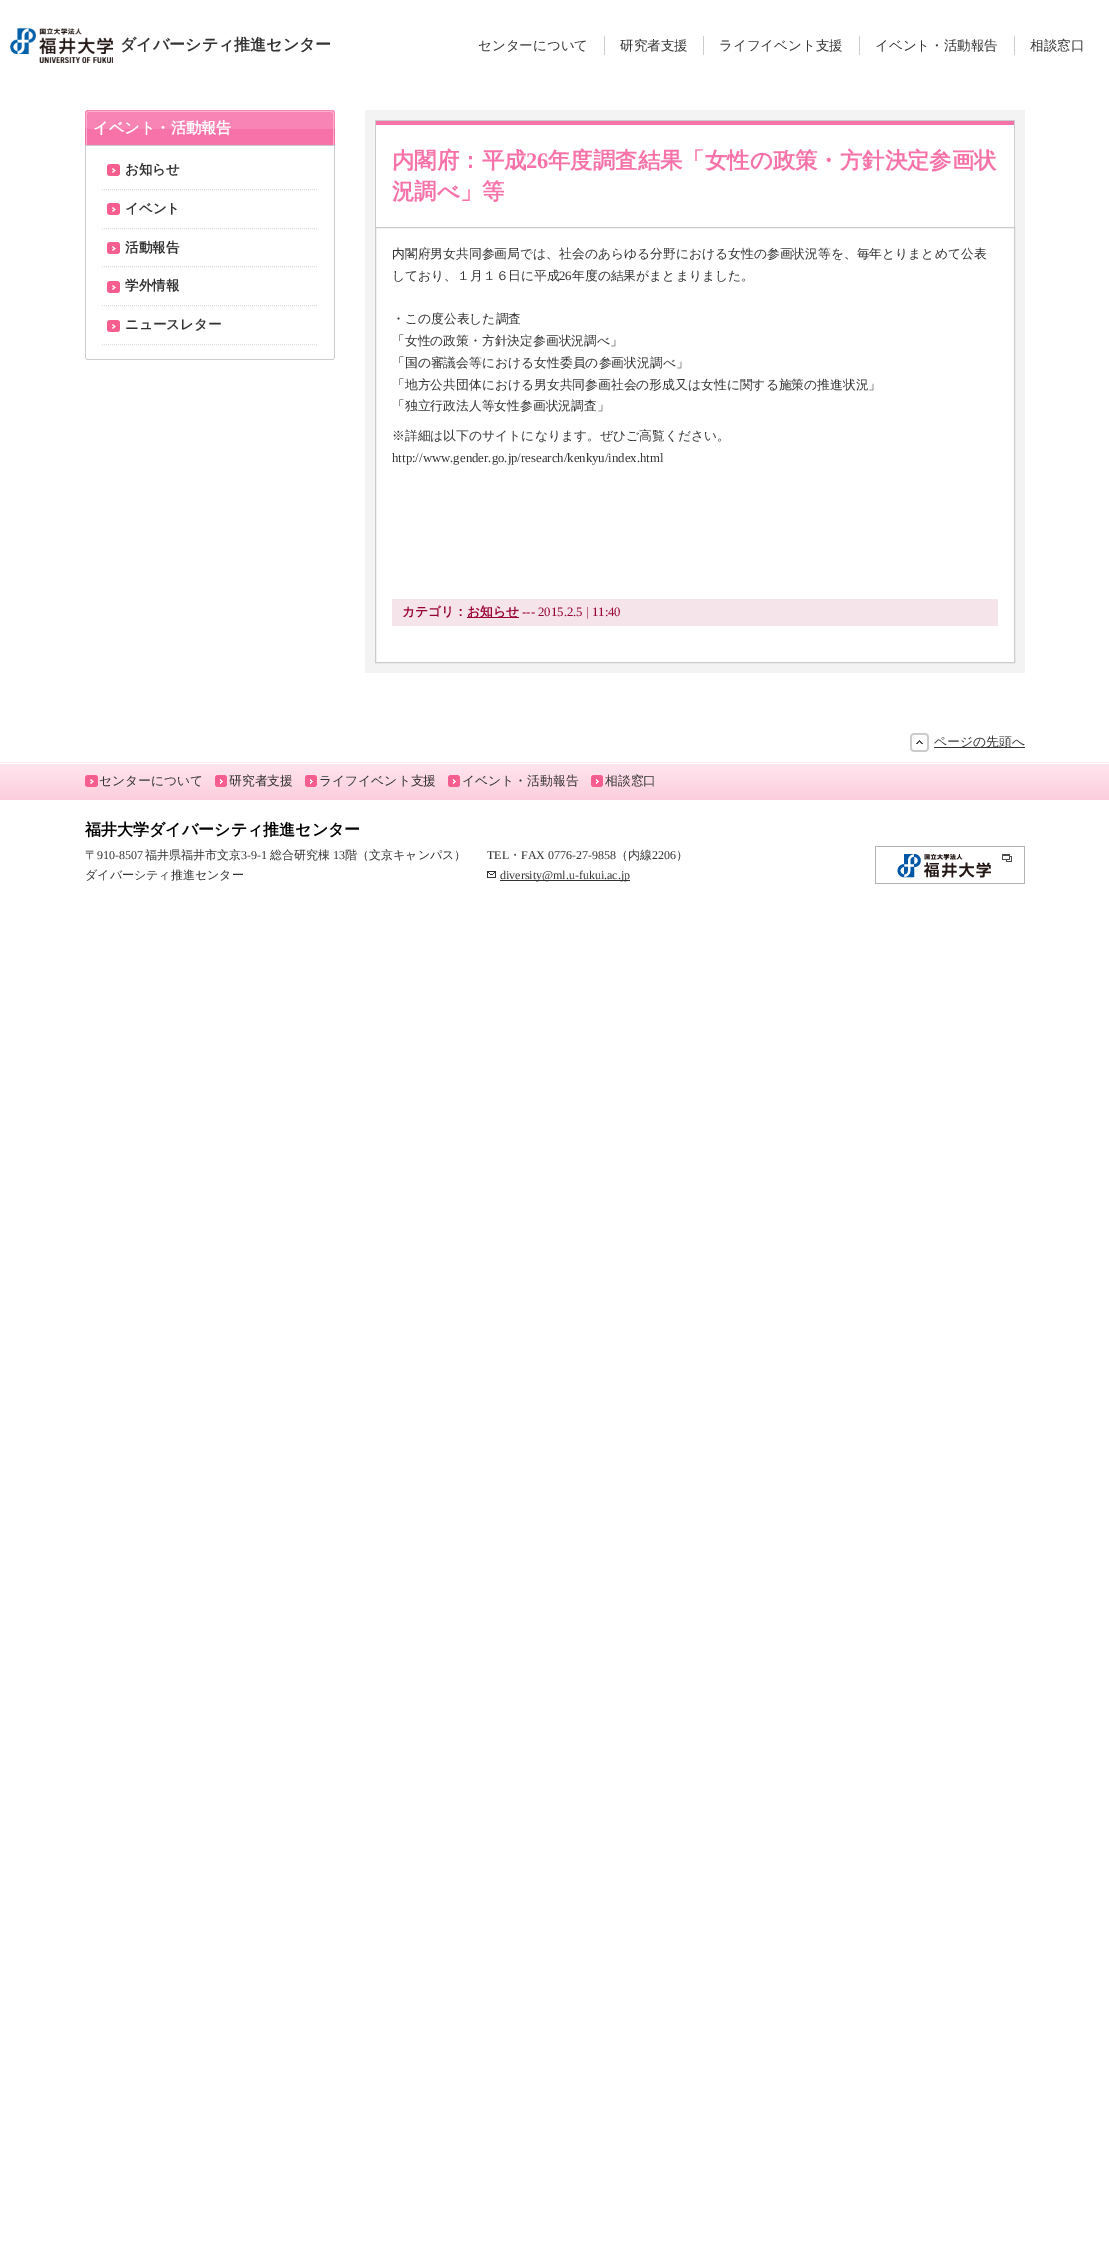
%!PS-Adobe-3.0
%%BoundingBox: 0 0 1109 2268
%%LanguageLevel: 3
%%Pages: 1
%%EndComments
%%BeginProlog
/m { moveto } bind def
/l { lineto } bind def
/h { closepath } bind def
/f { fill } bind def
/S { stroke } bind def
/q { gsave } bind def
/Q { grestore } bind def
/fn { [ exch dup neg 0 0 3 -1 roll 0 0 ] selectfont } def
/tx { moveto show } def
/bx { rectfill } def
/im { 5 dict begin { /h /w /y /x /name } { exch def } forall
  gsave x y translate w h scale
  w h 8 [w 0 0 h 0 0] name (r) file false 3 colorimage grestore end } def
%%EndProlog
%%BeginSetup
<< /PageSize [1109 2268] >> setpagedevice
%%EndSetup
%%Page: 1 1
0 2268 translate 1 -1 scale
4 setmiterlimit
1 setgray
0 0 1109 2268 bx
(image0.raw) 10 28 103 35 im
/WenQuanYiZenHei-Bold 16 fn
0.2 setgray
(ダイバーシティ推進センター) 120 50 tx
/WenQuanYiZenHei-Medium 13.5 fn
(センターについて) 478 50 tx
0.8 setgray
604 36 1 19 bx
0.2 setgray
(研究者支援) 620 50 tx
0.8 setgray
703 36 1 19 bx
0.2 setgray
(ライフイベント支援) 719 50 tx
0.8 setgray
859 36 1 19 bx
0.2 setgray
(イベント・活動報告) 875 50 tx
0.8 setgray
1014 36 1 19 bx
0.2 setgray
(相談窓口) 1030 50 tx
(image1.raw) 85 350 250 10 im
(image2.raw) 85 110 250 35 im
/WenQuanYiZenHei-Bold 15.25 fn
1 setgray
(イベント・活動報告) 93 133 tx
0.8 setgray
85 145 250 1 bx
334 145 1 205 bx
85 145 1 205 bx
0.867 setgray
[1 1] 0 setdash
102 189.5 m 318 189.5 l S
(image3.raw) 107 164 13 12 im
/WenQuanYiZenHei-Bold 13.5 fn
0.2 setgray
(お知らせ) 125 174 tx
0.867 setgray
102 228.5 m 318 228.5 l S
(image3.raw) 107 203 13 12 im
0.2 setgray
(イベント) 125 213 tx
0.867 setgray
102 266.5 m 318 266.5 l S
(image3.raw) 107 242 13 12 im
0.2 setgray
(活動報告) 125 252 tx
0.867 setgray
102 305.5 m 318 305.5 l S
(image3.raw) 107 281 13 12 im
0.2 setgray
(学外情報) 125 290 tx
0.867 setgray
102 344.5 m 318 344.5 l S
(image3.raw) 107 320 13 12 im
0.2 setgray
(ニュースレター) 125 329 tx
0.953 setgray
365 110 660 563 bx
1 setgray
376 125 638 102 bx
0.8 setgray
375 120 640 1 bx
1014 120 1 107 bx
375 120 1 107 bx
0.969 0.447 0.663 setrgbcolor
376 121 638 4 bx
/WenQuanYiZenHei-Bold 22.4 fn
(内閣府：平成) 392 168 tx
/LiberationSerif-Bold 22.4 fn
(26) 526 168 tx
/WenQuanYiZenHei-Bold 22.4 fn
(年度調査結果「女性の政策・方針決定参画状) 548 168 tx
(況調べ」等) 392 199 tx
1 setgray
375.5 227.5 m 1014.5 227.5 l 1014.5 662.5 l 375.5 662.5 l h q f Q
0.8 setgray
[] 0 setdash
S
/WenQuanYiZenHei-Medium 12.8 fn
0.2 setgray
(内閣府男女共同参画局では、社会のあらゆる分野における女性の参画状況等を、毎年とりまとめて公表) 392 258 tx
(しており、１月１６日に平成) 392 280 tx
/LiberationSerif-Regular 12.8 fn
(26) 559 280 tx
/WenQuanYiZenHei-Medium 12.8 fn
(年度の結果がまとまりました。) 572 280 tx
(・この度公表した調査) 392 323 tx
(「女性の政策・方針決定参画状況調べ」) 392 345 tx
(「国の審議会等における女性委員の参画状況調べ」) 392 367 tx
(「地方公共団体における男女共同参画社会の形成又は女性に関する施策の推進状況」) 392 389 tx
(「独立行政法人等女性参画状況調査」) 392 410 tx
(※詳細は以下のサイトになります。ぜひご高覧ください。) 392 440 tx
/LiberationSerif-Regular 12.8 fn
(http://www.gender.go.jp/research/kenkyu/index.html) 392 462 tx
0.961 0.898 0.918 setrgbcolor
392 599 606 27 bx
/WenQuanYiZenHei-Bold 12.8 fn
0.6 0 0.2 setrgbcolor
(カテゴリ：) 402 616 tx
467 617 52 1 bx
(お知らせ) 467 616 tx
/LiberationSerif-Regular 12.8 fn
(--- 2015.2.5 | 11:40) 522 616 tx
(image4.raw) 910 733 19 19 im
0.2 setgray
934 747 91 1 bx
/WenQuanYiZenHei-Medium 12.8 fn
(ページの先頭へ) 934 746 tx
(image5.raw) 0 762 1109 38 im
(image6.raw) 85 775 13 12 im
(センターについて) 99 785 tx
(image7.raw) 215 775 12 12 im
(研究者支援) 229 785 tx
(image7.raw) 305 775 12 12 im
(ライフイベント支援) 319 785 tx
(image7.raw) 448 775 12 12 im
(イベント・活動報告) 462 785 tx
(image7.raw) 591 775 12 12 im
(相談窓口) 605 785 tx
/WenQuanYiZenHei-Bold 16 fn
0 setgray
(福井大学ダイバーシティ推進センター) 85 835 tx
/WenQuanYiZenHei-Medium 12 fn
0.2 setgray
(〒) 85 859 tx
/LiberationSerif-Regular 12 fn
(910-8507) 97 859 tx
/WenQuanYiZenHei-Medium 12 fn
(福井県福井市文京) 145 859 tx
/LiberationSerif-Regular 12 fn
(3-9-1) 241 859 tx
/WenQuanYiZenHei-Medium 12 fn
(総合研究棟) 270 859 tx
/LiberationSerif-Regular 12 fn
(13) 333 859 tx
/WenQuanYiZenHei-Medium 12 fn
(階（文京キャンパス）) 345 859 tx
(ダイバーシティ推進センター) 85 879 tx
/LiberationSerif-Regular 12 fn
(TEL) 487 859 tx
/WenQuanYiZenHei-Medium 12 fn
(・) 509 859 tx
/LiberationSerif-Regular 12 fn
(FAX 0776-27-9858) 521 859 tx
/WenQuanYiZenHei-Medium 12 fn
(（内線) 616 859 tx
/LiberationSerif-Regular 12 fn
(2206) 652 859 tx
/WenQuanYiZenHei-Medium 12 fn
(）) 676 859 tx
(image8.raw) 487 871 9 7 im
500 880 130 1 bx
/LiberationSerif-Regular 12 fn
(diversity@ml.u-fukui.ac.jp) 500 879 tx
(image9.raw) 875 846 150 38 im
showpage
%%EOF
